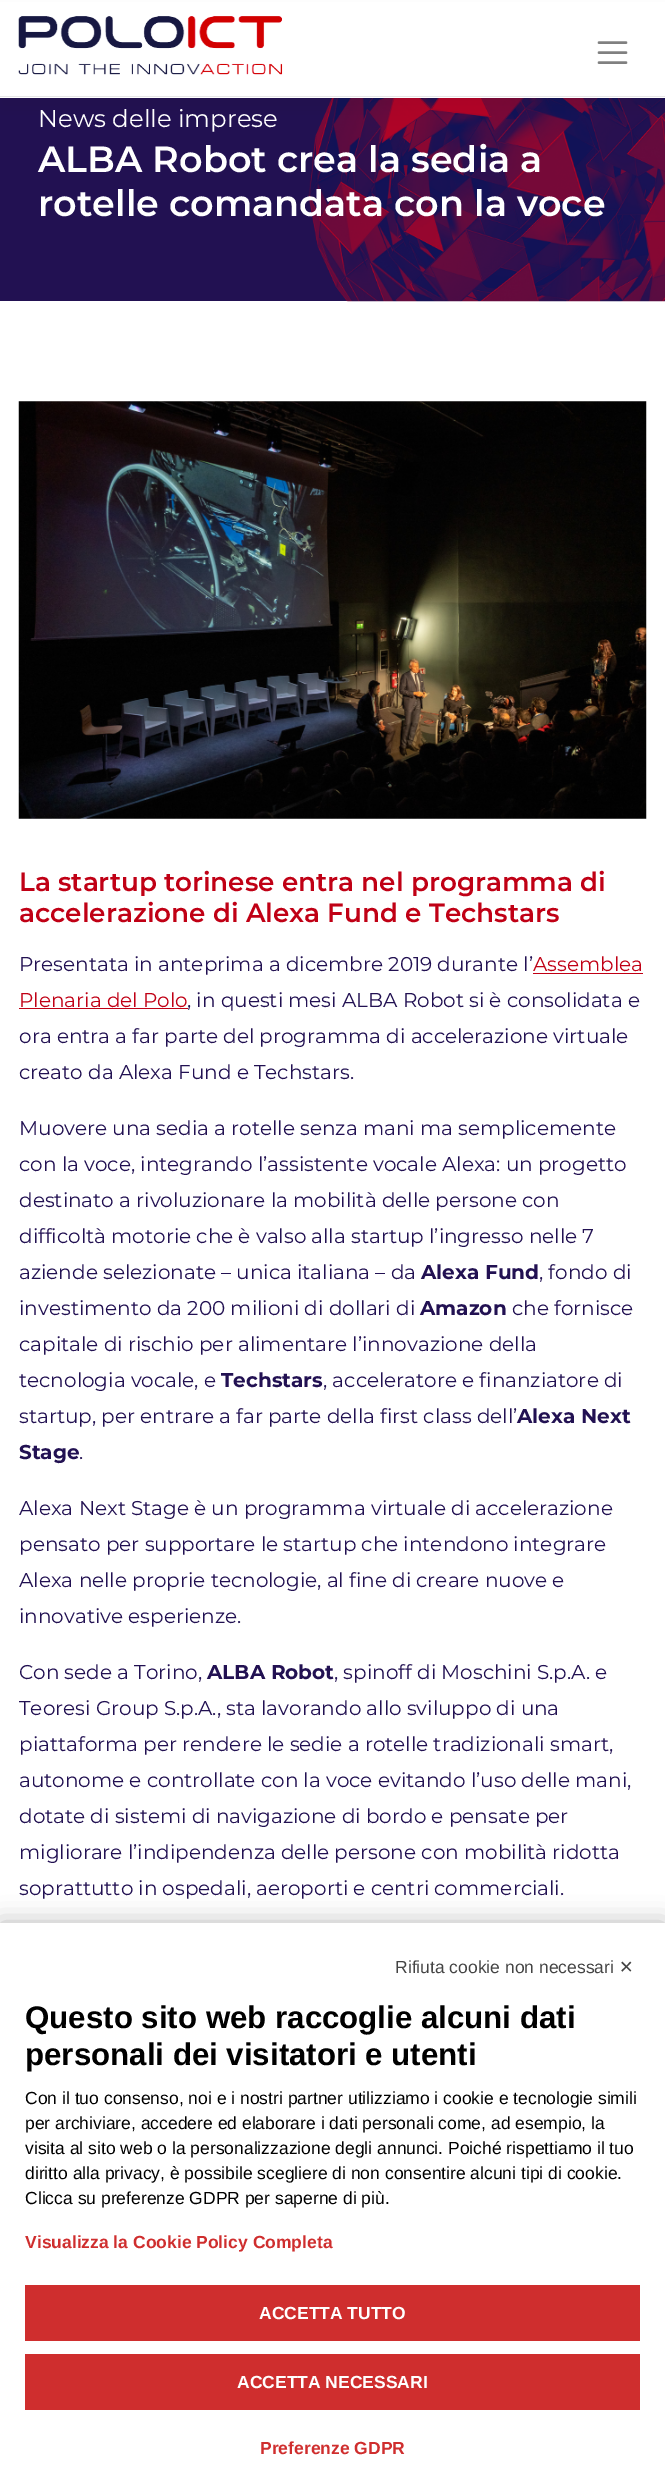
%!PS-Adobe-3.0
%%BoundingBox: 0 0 665 2485
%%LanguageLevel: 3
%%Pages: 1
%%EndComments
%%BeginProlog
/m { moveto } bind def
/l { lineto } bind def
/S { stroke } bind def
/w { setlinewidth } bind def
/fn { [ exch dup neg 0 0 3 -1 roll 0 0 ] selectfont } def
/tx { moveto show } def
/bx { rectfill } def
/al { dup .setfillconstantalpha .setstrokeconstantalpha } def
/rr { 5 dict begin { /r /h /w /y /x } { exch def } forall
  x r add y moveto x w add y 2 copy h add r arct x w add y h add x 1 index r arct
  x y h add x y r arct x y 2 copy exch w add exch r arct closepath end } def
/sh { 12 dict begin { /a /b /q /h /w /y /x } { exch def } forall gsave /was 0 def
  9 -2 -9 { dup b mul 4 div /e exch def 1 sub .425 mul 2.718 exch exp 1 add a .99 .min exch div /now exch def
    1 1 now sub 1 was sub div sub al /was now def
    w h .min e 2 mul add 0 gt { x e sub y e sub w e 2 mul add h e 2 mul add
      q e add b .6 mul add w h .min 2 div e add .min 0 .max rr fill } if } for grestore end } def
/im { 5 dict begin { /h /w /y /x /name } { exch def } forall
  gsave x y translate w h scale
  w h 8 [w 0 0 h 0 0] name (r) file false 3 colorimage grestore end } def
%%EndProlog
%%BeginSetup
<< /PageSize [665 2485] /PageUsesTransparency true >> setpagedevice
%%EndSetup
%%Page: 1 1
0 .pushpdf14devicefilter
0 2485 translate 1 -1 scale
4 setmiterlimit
1 setgray
0 0 665 2485 bx
0.133 0.067 0.322 setrgbcolor
0 98 665 203 bx
(image1.raw) 308 98 357 204 im
0 setgray
0 10 665 98 0 10 0.05 sh
1 setgray
0 2 665 96 bx
0.902 setgray
0 96 665 1 bx
(image0.raw) 18 16 265 59 im
0.502 setgray
2.5 w
1 setlinecap
599 42.5 m 626 42.5 l 599 52.5 m 626 52.5 l 599 62.5 m 626 62.5 l S
/Montserrat-Regular 24.4 fn
1 setgray
(News delle imprese) 38 127 tx
/Montserrat-SemiBold 36.5 fn
(ALBA Robot crea la sedia a) 38 172 tx
(rotelle comandata con la voce) 38 216 tx
(image2.raw) 18 401 629 418 im
/Montserrat-SemiBold 26.25 fn
0.753 0 0.082 setrgbcolor
(La startup torinese entra nel programma di) 19 891 tx
(accelerazione di Alexa Fund e Techstars) 19 922 tx
/Montserrat-Regular 20 fn
0.133 0.067 0.322 setrgbcolor
(Presentata in anteprima a dicembre 2019 durante l’) 19 971 tx
0.753 0 0.082 setrgbcolor
(Assemblea) 533 971 tx
533 973 110 1 bx
(Plenaria del Polo) 19 1007 tx
19 1008 169 1 bx
0.133 0.067 0.322 setrgbcolor
(, in questi mesi ALBA Robot si è consolidata e) 187 1007 tx
(ora entra a far parte del programma di accelerazione virtuale) 19 1043 tx
(creato da Alexa Fund e Techstars.) 19 1079 tx
(Muovere una sedia a rotelle senza mani ma semplicemente) 19 1135 tx
(con la voce, integrando l’assistente vocale Alexa: un progetto) 19 1171 tx
(destinato a rivoluzionare la mobilità delle persone con) 19 1207 tx
(difficoltà motorie che è valso alla startup l’ingresso nelle 7) 19 1243 tx
(aziende selezionate – unica italiana – da) 19 1279 tx
/Montserrat-Bold 20 fn
(Alexa Fund) 421 1279 tx
/Montserrat-Regular 20 fn
(, fondo di) 539 1279 tx
(investimento da 200 milioni di dollari di) 19 1315 tx
/Montserrat-Bold 20 fn
(Amazon) 420 1315 tx
/Montserrat-Regular 20 fn
(che fornisce) 512 1315 tx
(capitale di rischio per alimentare l’innovazione della) 19 1351 tx
(tecnologia vocale, e) 19 1387 tx
/Montserrat-Bold 20 fn
(Techstars) 221 1387 tx
/Montserrat-Regular 20 fn
(, acceleratore e finanziatore di) 323 1387 tx
(startup, per entrare a far parte della first class dell’) 19 1423 tx
/Montserrat-Bold 20 fn
(Alexa Next) 517 1423 tx
(Stage) 19 1459 tx
/Montserrat-Regular 20 fn
(.) 79 1459 tx
(Alexa Next Stage è un programma virtuale di accelerazione) 19 1515 tx
(pensato per supportare le startup che intendono integrare) 19 1551 tx
(Alexa nelle proprie tecnologie, al fine di creare nuove e) 19 1587 tx
(innovative esperienze.) 19 1623 tx
(Con sede a Torino,) 19 1679 tx
/Montserrat-Bold 20 fn
(ALBA Robot) 207 1679 tx
/Montserrat-Regular 20 fn
(, spinoff di Moschini S.p.A. e) 334 1679 tx
(Teoresi Group S.p.A., sta lavorando allo sviluppo di una) 19 1715 tx
(piattaforma per rendere le sedie a rotelle tradizionali smart,) 19 1751 tx
(autonome e controllate con la voce evitando l’uso delle mani,) 19 1787 tx
(dotate di sistemi di navigazione di bordo e pensate per) 19 1823 tx
(migliorare l’indipendenza delle persone con mobilità ridotta) 19 1859 tx
(soprattutto in ospedali, aeroporti e centri commerciali.) 19 1895 tx
0 setgray
0 1923 665 562 0 12.5 0.27 sh
1 setgray
0 1923 665 562 bx
/LiberationSans-Regular 17.5 fn
0.267 setgray
(Rifiuta cookie non necessari) 395 1973 tx
/DejaVuSans-Regular 17.5 fn
(✕) 619 1973 tx
/LiberationSans-Bold 31.25 fn
0 setgray
(Questo sito web raccoglie alcuni dati) 25 2028 tx
(personali dei visitatori e utenti) 25 2065 tx
/LiberationSans-Regular 17.5 fn
(Con il tuo consenso, noi e i nostri partner utilizziamo i cookie e tecnologie simili) 25 2104 tx
(per archiviare, accedere ed elaborare i dati personali come, ad esempio, la) 25 2129 tx
(visita al sito web o la personalizzazione degli annunci. Poiché rispettiamo il tuo) 25 2154 tx
(diritto alla privacy, è possibile scegliere di non consentire alcuni tipi di cookie.) 25 2179 tx
(Clicca su preferenze GDPR per saperne di più.) 25 2204 tx
/LiberationSans-Bold 17.5 fn
0.812 0.18 0.18 setrgbcolor
(Visualizza la Cookie Policy Completa) 25 2248 tx
25 2285 615 56 bx
1 setgray
(ACCETTA TUTTO) 259 2319 tx
0.812 0.18 0.18 setrgbcolor
25 2354 615 56 bx
1 setgray
(ACCETTA NECESSARI) 237 2388 tx
0.812 0.18 0.18 setrgbcolor
(Preferenze GDPR) 260 2454 tx
.poppdf14devicefilter showpage
%%EOF
